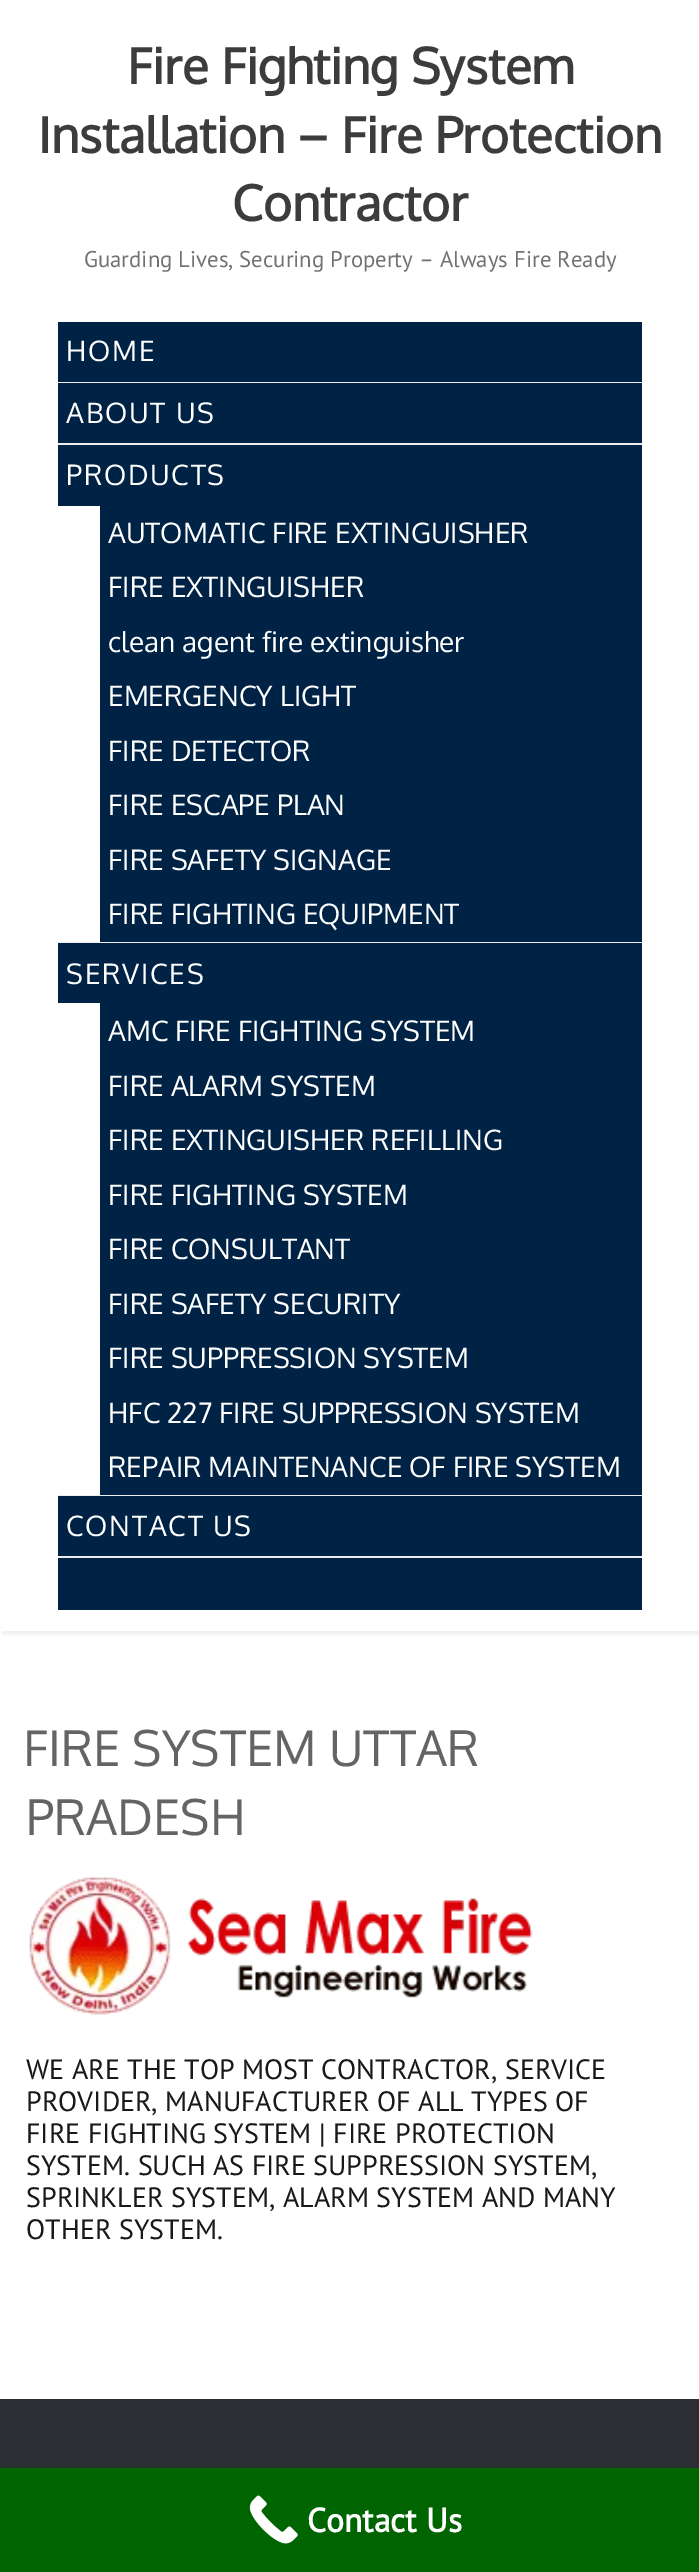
%!PS-Adobe-3.0
%%BoundingBox: 0 0 699 2572
%%LanguageLevel: 3
%%Pages: 1
%%EndComments
%%BeginProlog
/m { moveto } bind def
/q { gsave } bind def
/Q { grestore } bind def
/fn { [ exch dup neg 0 0 3 -1 roll 0 0 ] selectfont } def
/tx { moveto show } def
/bx { rectfill } def
/al { dup .setfillconstantalpha .setstrokeconstantalpha } def
/rr { 5 dict begin { /r /h /w /y /x } { exch def } forall
  x r add y moveto x w add y 2 copy h add r arct x w add y h add x 1 index r arct
  x y h add x y r arct x y 2 copy exch w add exch r arct closepath end } def
/sh { 12 dict begin { /a /b /q /h /w /y /x } { exch def } forall gsave /was 0 def
  9 -2 -9 { dup b mul 4 div /e exch def 1 sub .425 mul 2.718 exch exp 1 add a .99 .min exch div /now exch def
    1 1 now sub 1 was sub div sub al /was now def
    w h .min e 2 mul add 0 gt { x e sub y e sub w e 2 mul add h e 2 mul add
      q e add b .6 mul add w h .min 2 div e add .min 0 .max rr fill } if } for grestore end } def
/im { 5 dict begin { /h /w /y /x /name } { exch def } forall
  gsave x y translate w h scale
  w h 8 [w 0 0 h 0 0] name (r) file false 3 colorimage grestore end } def
%%EndProlog
%%BeginSetup
<< /PageSize [699 2572] /PageUsesTransparency true >> setpagedevice
%%EndSetup
%%Page: 1 1
0 .pushpdf14devicefilter
0 2572 translate 1 -1 scale
4 setmiterlimit
1 setgray
0 0 699 2572 bx
q
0 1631 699 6 rectclip
0.941 setgray
2 4 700 1631 0 1 1 sh
Q
/Oxygen-Bold 49 fn
0.235 setgray
(Fire Fighting System) 127 84 tx
(Installation – Fire Protection) 38 153 tx
(Contractor) 232 221 tx
/PTSans-Regular 22.75 fn
0.447 setgray
(Guarding Lives, Securing Property – Always Fire Ready) 84 267 tx
0.933 setgray
58 382 584 1 bx
0 0.133 0.267 setrgbcolor
58 322 584 60 bx
/Oxygen-Regular 28 fn
1 setgray
66 361 m 1.75 0 (HOME) ashow
0.933 setgray
58 443 584 2 bx
0 0.133 0.267 setrgbcolor
58 383 584 60 bx
1 setgray
66 423 m 1.75 0 (ABOUT US) ashow
0.933 setgray
58 942 584 1 bx
0 0.133 0.267 setrgbcolor
58 445 584 61 bx
1 setgray
66 485 m 1.75 0 (PRODUCTS) ashow
0 0.133 0.267 setrgbcolor
100 506 542 436 bx
1 setgray
(AUTOMATIC FIRE EXTINGUISHER) 108 543 tx
(FIRE EXTINGUISHER) 108 597 tx
(clean agent fire extinguisher) 108 652 tx
(EMERGENCY LIGHT) 108 706 tx
(FIRE DETECTOR) 108 761 tx
(FIRE ESCAPE PLAN) 108 815 tx
(FIRE SAFETY SIGNAGE) 108 870 tx
(FIRE FIGHTING EQUIPMENT) 108 924 tx
0.933 setgray
58 1495 584 1 bx
0 0.133 0.267 setrgbcolor
58 943 584 60 bx
1 setgray
66 984 m 1.75 0 (SERVICES) ashow
0 0.133 0.267 setrgbcolor
100 1003 542 492 bx
1 setgray
(AMC FIRE FIGHTING SYSTEM) 108 1041 tx
(FIRE ALARM SYSTEM) 108 1096 tx
(FIRE EXTINGUISHER REFILLING) 108 1150 tx
(FIRE FIGHTING SYSTEM) 108 1205 tx
(FIRE CONSULTANT) 108 1259 tx
(FIRE SAFETY SECURITY) 108 1314 tx
(FIRE SUPPRESSION SYSTEM) 108 1368 tx
(HFC 227 FIRE SUPPRESSION SYSTEM) 108 1423 tx
(REPAIR MAINTENANCE OF FIRE SYSTEM) 108 1477 tx
0.933 setgray
58 1556 584 2 bx
0 0.133 0.267 setrgbcolor
58 1496 584 60 bx
1 setgray
66 1536 m 1.75 0 (CONTACT US) ashow
0 0.133 0.267 setrgbcolor
58 1558 584 52 bx
/Oxygen-Regular 49 fn
0.396 0.392 0.392 setrgbcolor
(FIRE SYSTEM UTTAR) 23 1766 tx
(PRADESH) 26 1835 tx
(image0.raw) 29 1877 504 138 im
/PTSans-Regular 28 fn
0.098 setgray
(WE ARE THE TOP MOST CONTRACTOR, SERVICE) 26 2079 tx
(PROVIDER, MANUFACTURER OF ALL TYPES OF) 26 2111 tx
(FIRE FIGHTING SYSTEM | FIRE PROTECTION) 26 2143 tx
(SYSTEM. SUCH AS FIRE SUPPRESSION SYSTEM,) 26 2175 tx
(SPRINKLER SYSTEM, ALARM SYSTEM AND MANY) 26 2207 tx
(OTHER SYSTEM.) 26 2239 tx
0.169 0.18 0.2 setrgbcolor
0 2399 699 69 bx
0 0.392 0 setrgbcolor
0 2468 699 104 bx
(image1.raw) 249 2495 49 49 im
/PTSans-Bold 33.5 fn
1 setgray
(Contact Us) 307 2532 tx
.poppdf14devicefilter showpage
%%EOF
